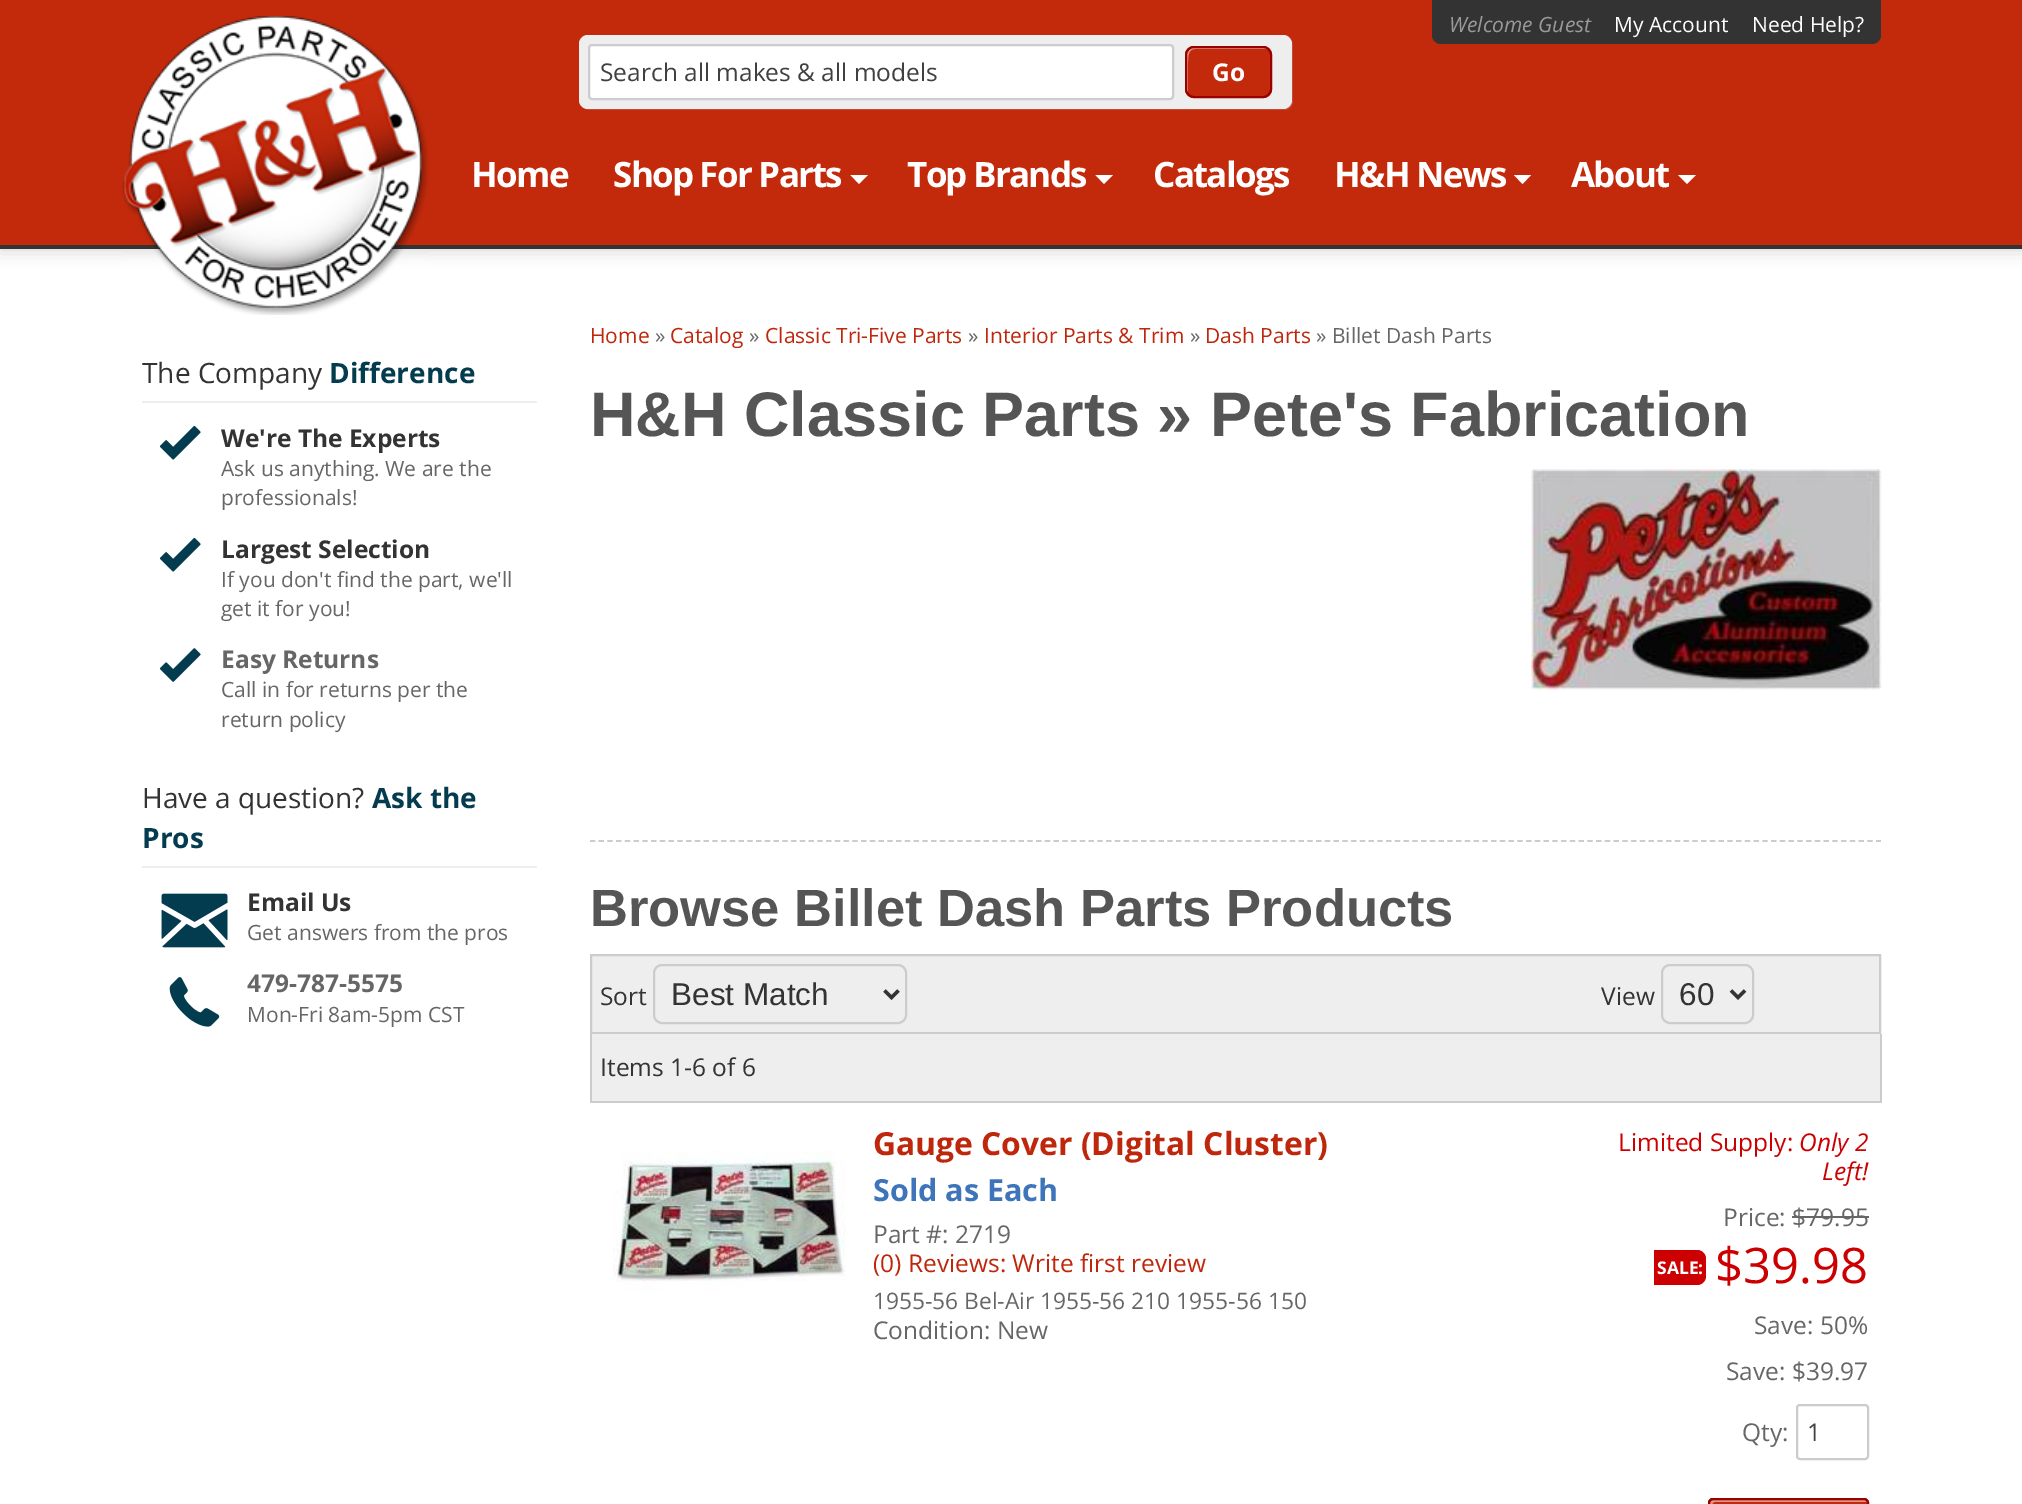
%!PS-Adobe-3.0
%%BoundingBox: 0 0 2022 1504
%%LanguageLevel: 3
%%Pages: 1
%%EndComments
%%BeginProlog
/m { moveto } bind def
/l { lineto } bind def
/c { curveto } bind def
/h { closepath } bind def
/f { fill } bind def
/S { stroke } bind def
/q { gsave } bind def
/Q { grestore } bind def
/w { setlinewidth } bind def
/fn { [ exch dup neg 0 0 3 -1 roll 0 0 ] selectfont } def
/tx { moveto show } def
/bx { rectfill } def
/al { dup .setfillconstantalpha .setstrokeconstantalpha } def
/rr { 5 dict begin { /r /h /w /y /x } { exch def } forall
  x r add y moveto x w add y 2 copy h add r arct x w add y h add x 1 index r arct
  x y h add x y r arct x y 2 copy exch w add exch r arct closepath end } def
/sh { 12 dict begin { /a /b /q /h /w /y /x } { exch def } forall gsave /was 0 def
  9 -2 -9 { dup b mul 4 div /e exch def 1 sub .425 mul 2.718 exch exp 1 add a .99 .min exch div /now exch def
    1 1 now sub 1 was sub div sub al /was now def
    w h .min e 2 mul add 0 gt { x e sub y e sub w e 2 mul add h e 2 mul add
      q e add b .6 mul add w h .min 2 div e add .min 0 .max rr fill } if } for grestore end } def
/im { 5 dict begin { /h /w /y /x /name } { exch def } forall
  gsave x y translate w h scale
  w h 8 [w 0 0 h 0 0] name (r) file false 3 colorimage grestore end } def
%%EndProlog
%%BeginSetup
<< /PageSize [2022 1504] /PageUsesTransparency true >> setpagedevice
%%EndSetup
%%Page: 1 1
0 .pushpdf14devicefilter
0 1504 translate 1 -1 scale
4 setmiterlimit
1 setgray
0 0 2022 1504 bx
0.8 setgray
0 0 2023 249 0 9 1 sh
0.765 0.165 0.047 setrgbcolor
0 0 2022 245 bx
0.2 setgray
0 245 2022 4 bx
1432 0 m 1881 0 l 1881 35 l 1881 40 1877 44 1872 44 c 1441 44 l 1436 44 1432 40 1432 35 c h f
/OpenSans-Italic 21 fn
0.6 setgray
(Welcome Guest) 1449 32 tx
/OpenSans-Regular 21 fn
1 setgray
(My Account) 1614 32 tx
(Need Help?) 1752 32 tx
0.761 0.298 0.208 setrgbcolor
584 107 m 585 109 587 110 590 110 c 1284 110 l 1289 110 1293 106 1293 101 c 1293 46 l 1293 44 1292 41 1291 40 c 1292 44 l 1292 100 l 1292 105 1288 108 1283 108 c 588 108 l 586 108 585 108 584 107 c h f
0.933 setgray
579 35 713 74 9 rr f
1 setgray
589 45 584 54 3 rr q f Q
0.8 setgray
2 w
S
/OpenSans-Regular 24.5 fn
0.251 setgray
(Search all makes & all models) 600 81 tx
0.765 0.165 0.047 setrgbcolor
1185 46 87 52 9 rr f
0.882 0.584 0.525 setrgbcolor
1195 49 m 1265 49 l 1267 49 1269 50 1271 52 c 1270 49 1267 47 1264 47 c 1194 47 l 1190 47 1187 50 1187 54 c 1187 89 l 1187 90 1187 92 1188 93 c 1188 62 l 1188 57 1188 49 1195 49 c h f
0.6 0 0 setrgbcolor
1186 47 85 50 8 rr S
/OpenSans-Bold 24.5 fn
1 setgray
(Go) 1212 81 tx
(image0.raw) 122 16 307 299 im
/OpenSans-Bold 35 fn
471 187 m -1.75 0 (Home) ashow
613 187 m -1.75 0 (Shop For Parts) ashow
850.5 175 m 868 175 l 859 184 l h f
907 187 m -1.75 0 (Top Brands) ashow
1095.5 175 m 1113 175 l 1104 184 l h f
1153 187 m -1.75 0 (Catalogs) ashow
1334 187 m -1.75 0 (H&H News) ashow
1514 175 m 1531 175 l 1522.5 184 l h f
1571 187 m -1.75 0 (About) ashow
1678 175 m 1696 175 l 1687 184 l h f
0.933 setgray
142 401 395 2 bx
/OpenSans-Regular 28 fn
0.2 setgray
(The Company) 142 383 tx
/OpenSans-Bold 28 fn
0.016 0.235 0.31 setrgbcolor
(Difference) 329 383 tx
(image1.raw) 159 426 42 34 im
/OpenSans-Bold 24.5 fn
0.2 setgray
(We're The Experts) 221 447 tx
/OpenSans-Regular 21 fn
0.4 setgray
(Ask us anything. We are the) 221 476 tx
(professionals!) 221 505 tx
(image1.raw) 159 538 42 34 im
/OpenSans-Bold 24.5 fn
0.2 setgray
(Largest Selection) 221 558 tx
/OpenSans-Regular 21 fn
0.4 setgray
(If you don't find the part, we'll) 221 587 tx
(get it for you!) 221 616 tx
(image2.raw) 159 648 42 34 im
/OpenSans-Bold 24.5 fn
(Easy Returns) 221 668 tx
/OpenSans-Regular 21 fn
(Call in for returns per the) 221 697 tx
(return policy) 221 727 tx
0.933 setgray
142 866 395 2 bx
/OpenSans-Regular 28 fn
0.2 setgray
(Have a question?) 142 808 tx
/OpenSans-Bold 28 fn
0.016 0.235 0.31 setrgbcolor
(Ask the) 372 808 tx
(Pros) 142 848 tx
(image3.raw) 161 893 67 55 im
/OpenSans-Bold 24.5 fn
0.2 setgray
(Email Us) 247 911 tx
/OpenSans-Regular 21 fn
0.4 setgray
(Get answers from the pros) 247 940 tx
(image4.raw) 169 977 51 50 im
/OpenSans-Bold 24.5 fn
(479-787-5575) 247 992 tx
/OpenSans-Regular 21 fn
(Mon-Fri 8am-5pm CST) 247 1022 tx
0.745 0.153 0.047 setrgbcolor
(Home) 590 343 tx
0.4 setgray
(») 655 343 tx
0.745 0.153 0.047 setrgbcolor
(Catalog) 670 343 tx
0.4 setgray
(») 749 343 tx
0.745 0.153 0.047 setrgbcolor
(Classic Tri-Five Parts) 765 343 tx
0.4 setgray
(») 968 343 tx
0.745 0.153 0.047 setrgbcolor
(Interior Parts & Trim) 984 343 tx
0.4 setgray
(») 1190 343 tx
0.745 0.153 0.047 setrgbcolor
(Dash Parts) 1205 343 tx
0.4 setgray
(» Billet Dash Parts) 1316 343 tx
/LiberationSans-Bold 63 fn
0.333 setgray
(H&H Classic Parts » Pete's Fabrication) 590 436 tx
(image5.raw) 1531 469 351 221 im
0.8 setgray
1.8 w
[5.25 3.5] 0 setdash
590 841 m 1881 841 l S
/LiberationSans-Bold 52.5 fn
0.333 setgray
(Browse Billet Dash Parts Products) 590 926 tx
0.933 setgray
591 955 m 1880 955 l 1880 1033 l 591 1033 l h q f Q
0.8 setgray
2 w
[] 0 setdash
S
/OpenSans-Regular 24.5 fn
0.2 setgray
(Sort) 600 1005 tx
0.8 setgray
654 965 252 58 8 rr S
0.2 setgray
3.5 w
884.5 990.5 m 891.5 997.5 l 898.5 990.5 l S
/LiberationSans-Regular 31.5 fn
(Best Match) 671 1005 tx
/OpenSans-Regular 24.5 fn
(View) 1601 1005 tx
0.8 setgray
2 w
1662 965 91 58 8 rr S
0.2 setgray
3.5 w
1731 990.5 m 1738 997.5 l 1745 990.5 l S
/LiberationSans-Regular 31.5 fn
(60) 1679 1005 tx
0.933 setgray
592 1034 1288 67 bx
0.8 setgray
1880 1034 2 69 bx
590 1101 1291 2 bx
590 1034 2 69 bx
/OpenSans-Regular 24.5 fn
0.2 setgray
(Items 1-6 of 6) 600 1076 tx
(image6.raw) 613 1151 233 141 im
/OpenSans-Bold 31.8 fn
0.745 0.153 0.047 setrgbcolor
(Gauge Cover \(Digital Cluster\)) 873 1155 tx
/OpenSans-Bold 30.5 fn
0.243 0.455 0.725 setrgbcolor
(Sold as Each) 873 1201 tx
/OpenSans-Regular 24.5 fn
0.4 setgray
(Part #: 2719) 873 1243 tx
0.745 0.153 0.047 setrgbcolor
(\(0\) Reviews: Write first review) 873 1272 tx
/OpenSans-Regular 22.75 fn
0.4 setgray
(1955-56 Bel-Air 1955-56 210 1955-56 150) 873 1309 tx
/OpenSans-Regular 24.5 fn
(Condition: New) 873 1339 tx
0.8 0 0 setrgbcolor
(Limited Supply:) 1618 1151 tx
/OpenSans-Italic 24.5 fn
(Only 2) 1799 1151 tx
(Left!) 1822 1180 tx
/OpenSans-Regular 24.5 fn
0.4 setgray
(Price: $79.95) 1723 1226 tx
1792 1216 77 2 bx
0.8 0 0 setrgbcolor
1654 1250 m 1697 1250 l 1702 1250 1706 1254 1706 1259 c 1706 1276 l 1706 1281 1702 1285 1697 1285 c 1654 1285 l h f
/OpenSans-Bold 17.5 fn
1 setgray
(SALE:) 1657 1274 tx
/OpenSans-Regular 49 fn
0.8 0 0 setrgbcolor
($39.98) 1715 1283 tx
/OpenSans-Regular 24.5 fn
0.4 setgray
(Save: 50%) 1754 1334 tx
(Save: $39.97) 1726 1380 tx
(Qty:) 1742 1441 tx
0.8 setgray
2 w
1797 1405 71 54 3 rr S
0.251 setgray
(1) 1807 1441 tx
0.765 0.165 0.047 setrgbcolor
1708 1498 161 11 5 rr f
0.882 0.584 0.525 setrgbcolor
1715 1502 m 1867 1502 l 1866 1501 1865 1500 1863 1500 c 1714 1500 l 1712 1500 1710 1502 1710 1504 c 1710 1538 l 1710 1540 1711 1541 1712 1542 c 1712 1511 l 1712 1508 1711 1502 1715 1502 c h f
0.6 0 0 setrgbcolor
1709 1499 159 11 4 rr S
.poppdf14devicefilter showpage
%%EOF
